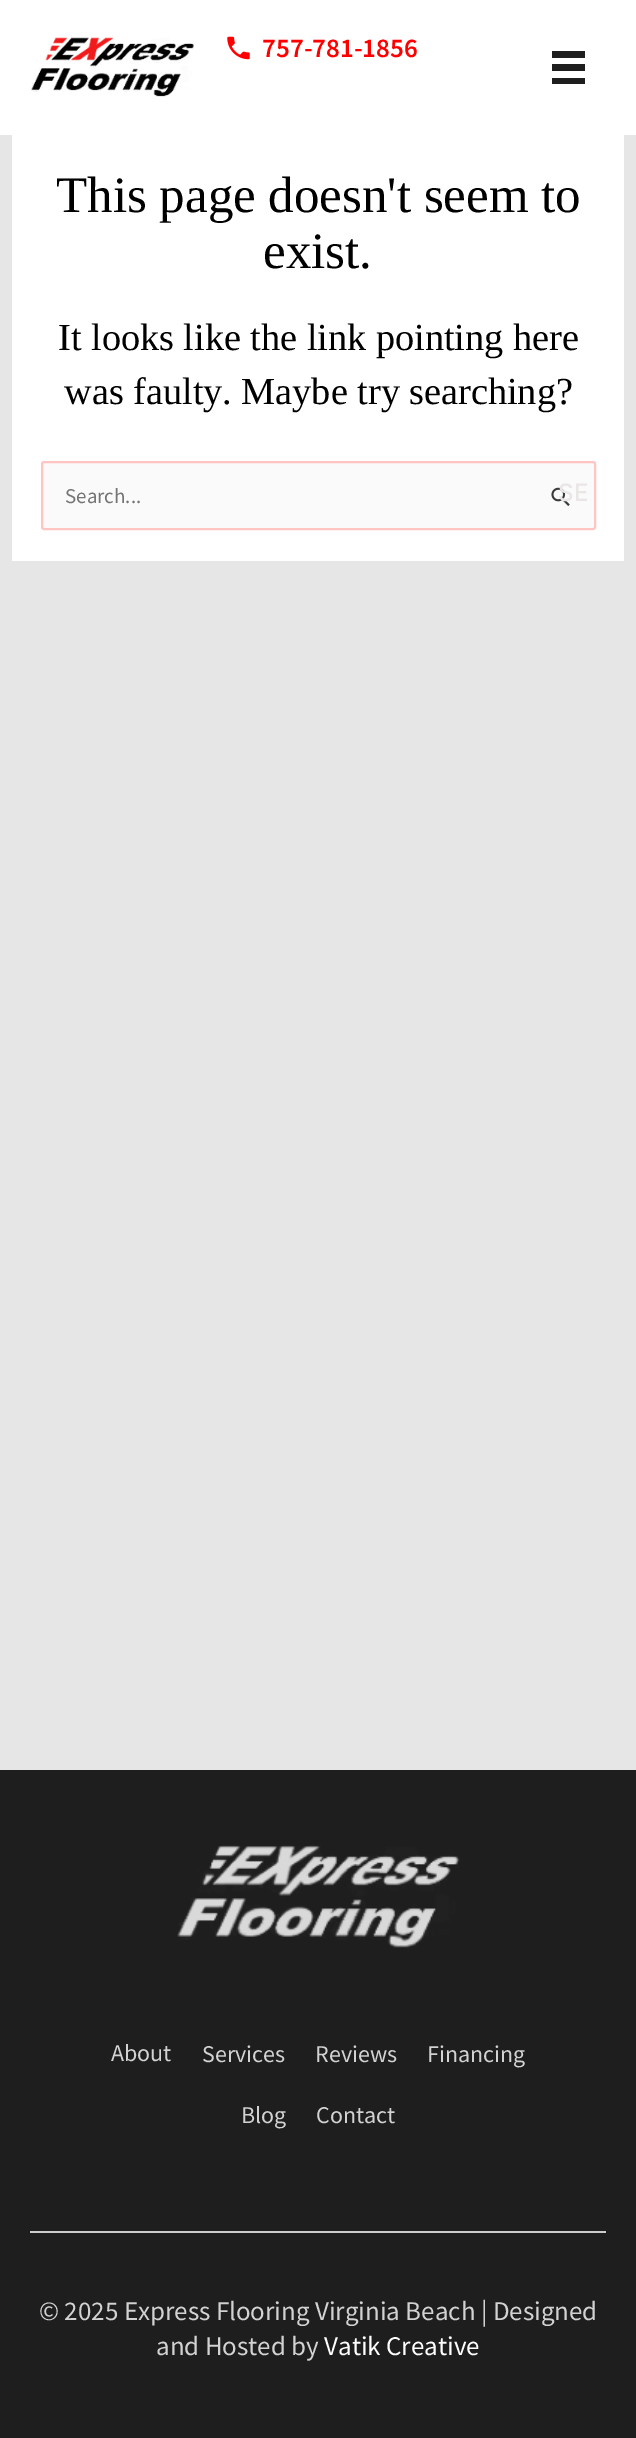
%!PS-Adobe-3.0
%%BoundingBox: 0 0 636 2438
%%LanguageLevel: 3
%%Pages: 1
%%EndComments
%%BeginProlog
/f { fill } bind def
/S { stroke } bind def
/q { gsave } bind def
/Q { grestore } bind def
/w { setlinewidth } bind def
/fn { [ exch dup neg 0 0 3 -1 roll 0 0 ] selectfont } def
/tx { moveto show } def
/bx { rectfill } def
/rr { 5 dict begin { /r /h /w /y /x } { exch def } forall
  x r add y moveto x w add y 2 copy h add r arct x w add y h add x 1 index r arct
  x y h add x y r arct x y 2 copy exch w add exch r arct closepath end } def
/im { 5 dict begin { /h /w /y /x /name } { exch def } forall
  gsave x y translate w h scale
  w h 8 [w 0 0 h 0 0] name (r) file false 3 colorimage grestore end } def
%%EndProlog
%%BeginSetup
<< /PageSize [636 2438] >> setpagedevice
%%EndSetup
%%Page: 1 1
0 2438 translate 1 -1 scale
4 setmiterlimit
0.902 setgray
0 0 636 2438 bx
1 setgray
0 0 636 135 bx
(image0.raw) 31 37 164 60 im
(image1.raw) 227 36 23 24 im
/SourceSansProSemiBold-SemiBold 27 fn
1 0 0 setrgbcolor
(757-781-1856) 262 57 tx
0.118 setgray
552 51 33 7 bx
552 64 33 7 bx
552 78 33 6 bx
1 setgray
12 135 612 426 bx
/LiberationSerif-Regular 51 fn
0 setgray
(This page doesn't seem to) 56 212 tx
(exist.) 263 268 tx
/LiberationSerif-Regular 38.25 fn
(It looks like the link pointing here) 58 350 tx
(was faulty. Maybe try searching?) 64 404 tx
0.98 setgray
42 462 553 67 2 rr q f Q
0.996 0.773 0.765 setrgbcolor
2 w
S
/SourceSansPro-Regular 21 fn
0.459 setgray
(Search...) 65 503 tx
(image2.raw) 551 487 19 19 im
/Inter-Medium 24 fn
0.918 0.902 0.902 setrgbcolor
(SE) 558 501 tx
0.118 setgray
0 1770 636 668 bx
(image3.raw) 177 1845 283 103 im
/SourceSansPro-Regular 24 fn
0.824 setgray
(About) 111 2061 tx
(Services) 202 2062 tx
(Reviews) 315 2062 tx
(Financing) 427 2062 tx
(Blog) 241 2123 tx
(Contact) 316 2123 tx
0.8 setgray
30 2231 576 2 bx
/SourceSansPro-Regular 27 fn
0.824 setgray
(© 2025 Express Flooring Virginia Beach | Designed) 39 2320 tx
(and Hosted by) 156 2355 tx
1 setgray
(Vatik Creative) 324 2355 tx
showpage
%%EOF
